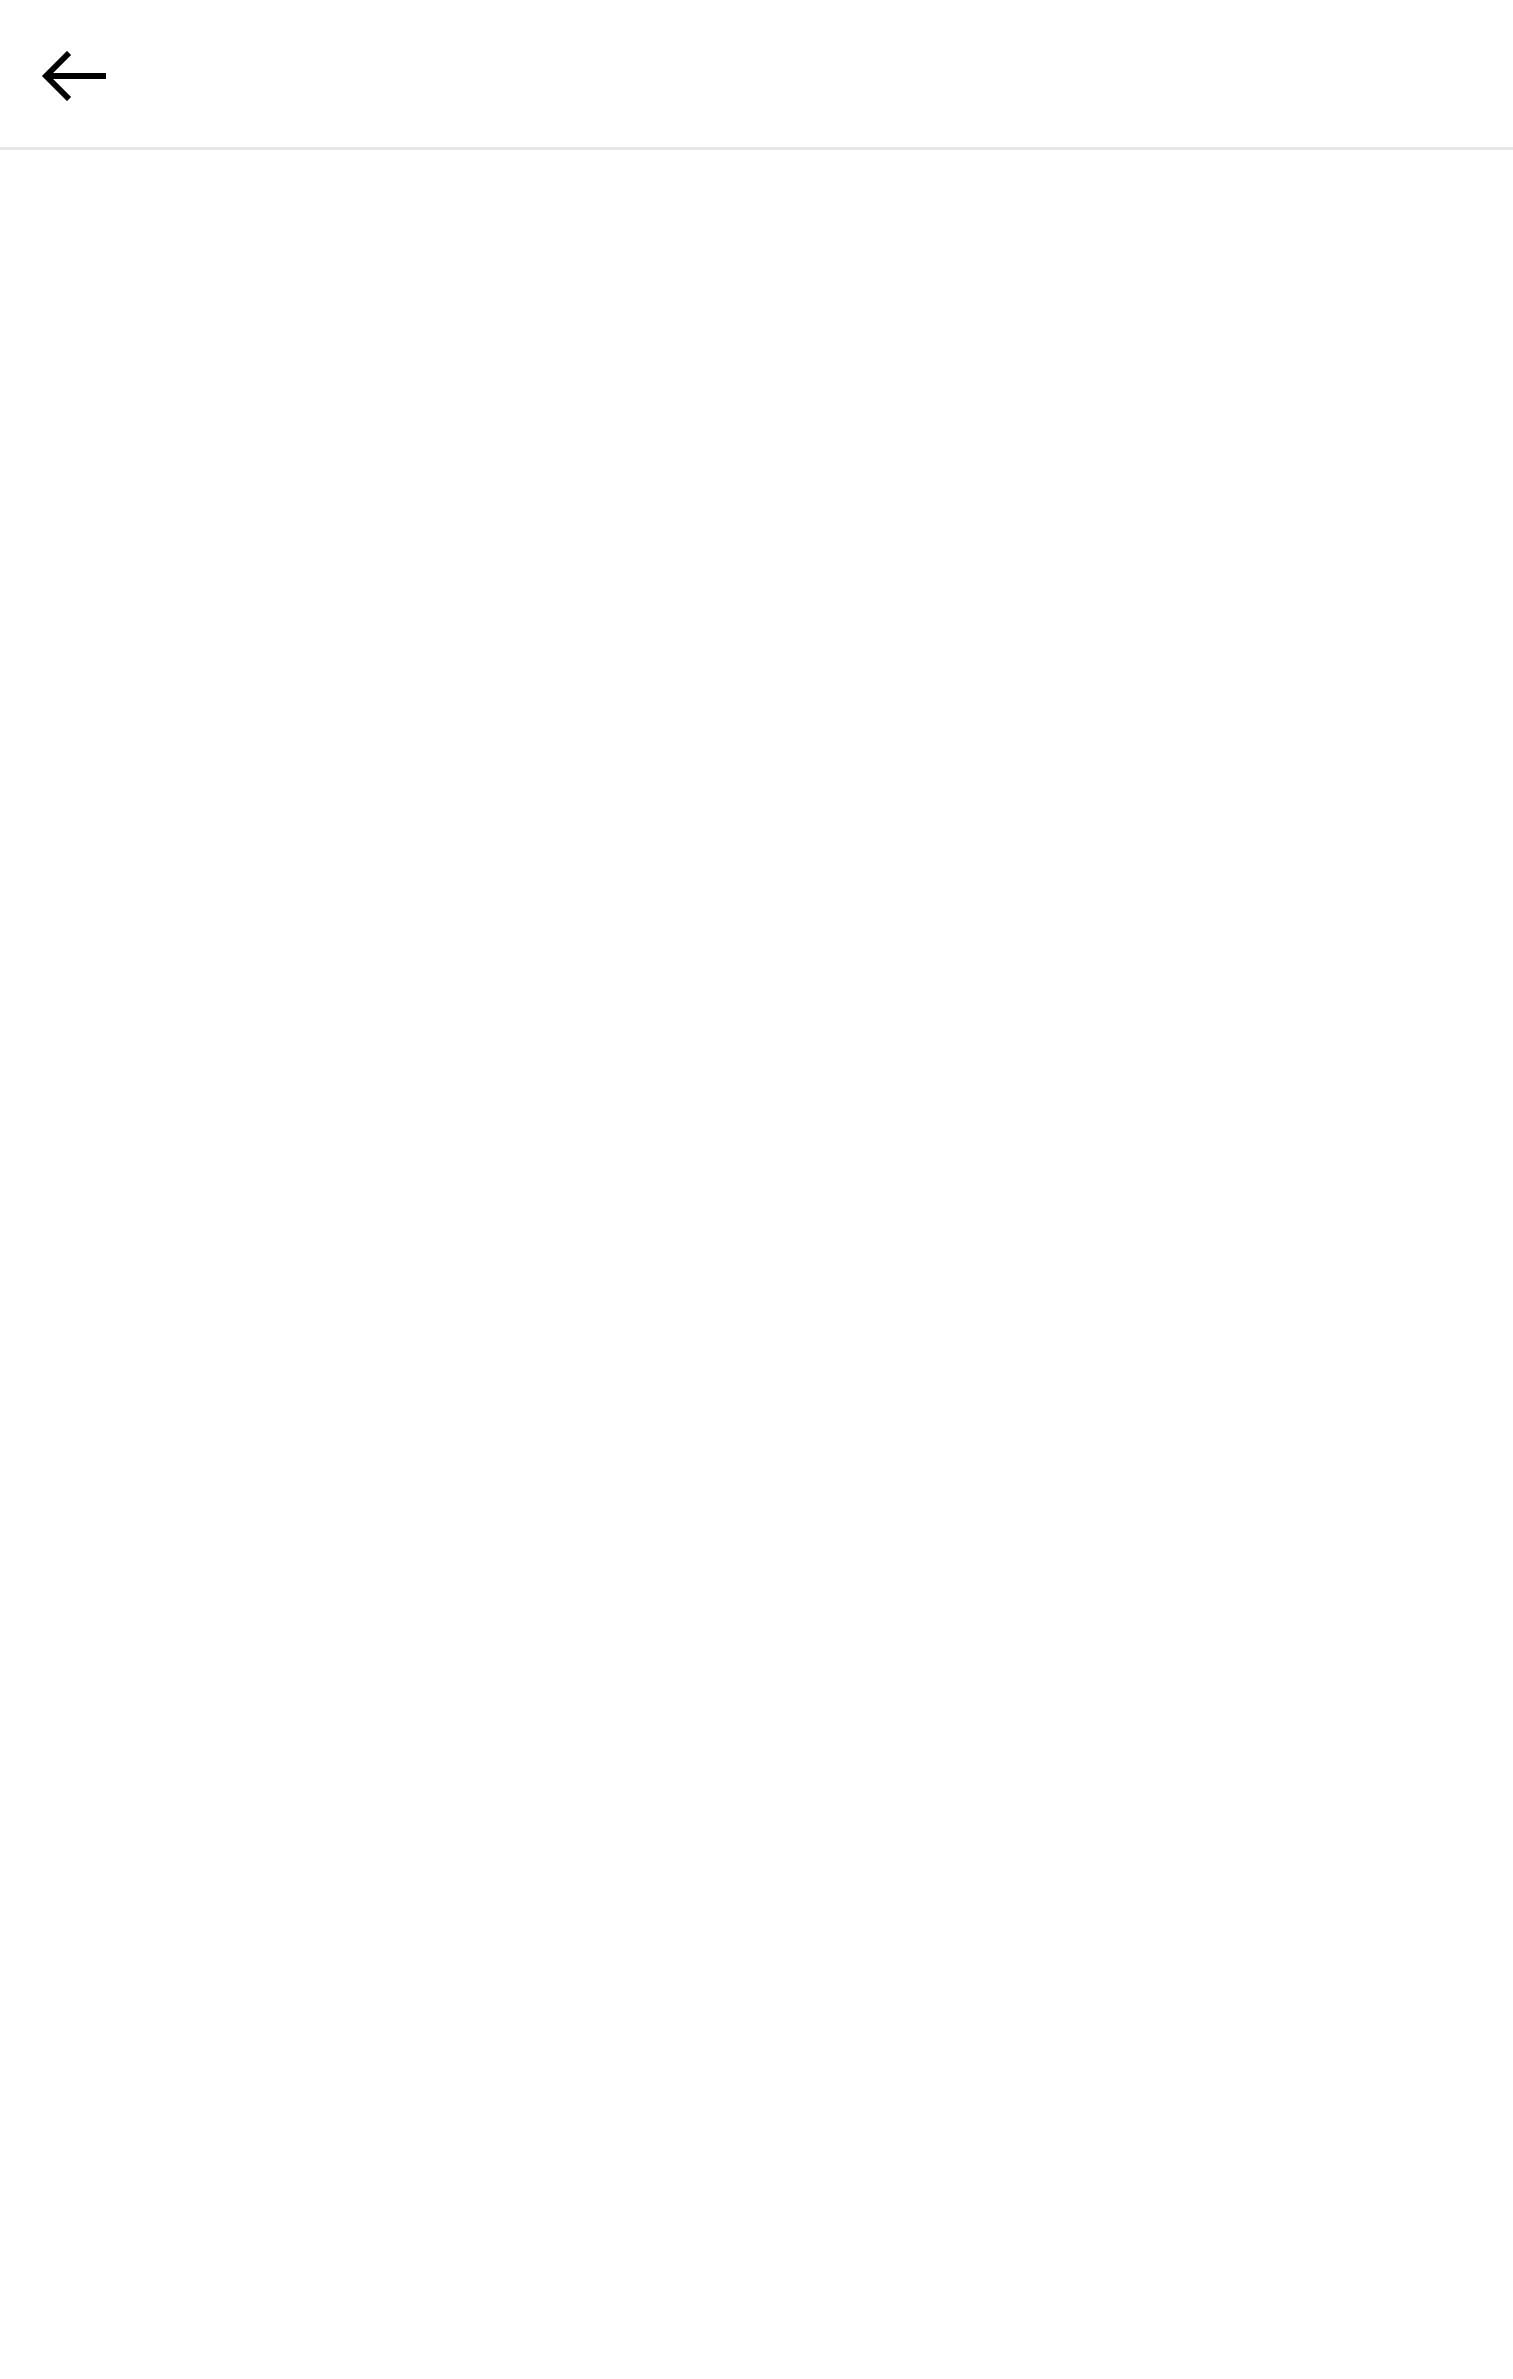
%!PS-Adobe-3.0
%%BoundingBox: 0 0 1513 2379
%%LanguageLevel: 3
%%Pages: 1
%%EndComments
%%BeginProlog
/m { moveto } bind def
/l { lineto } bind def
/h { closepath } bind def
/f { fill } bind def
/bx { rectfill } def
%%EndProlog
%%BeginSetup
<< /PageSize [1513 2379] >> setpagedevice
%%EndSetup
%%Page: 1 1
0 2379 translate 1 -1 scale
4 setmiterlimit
1 setgray
0 0 1513 2379 bx
0.902 setgray
0 147 1513 3 bx
0 setgray
67 51 m 71 55 l 53 73 l 106 73 l 106 79 l 53 79 l 71 97 l 67 101 l 42 76 l h f
showpage
%%EOF
